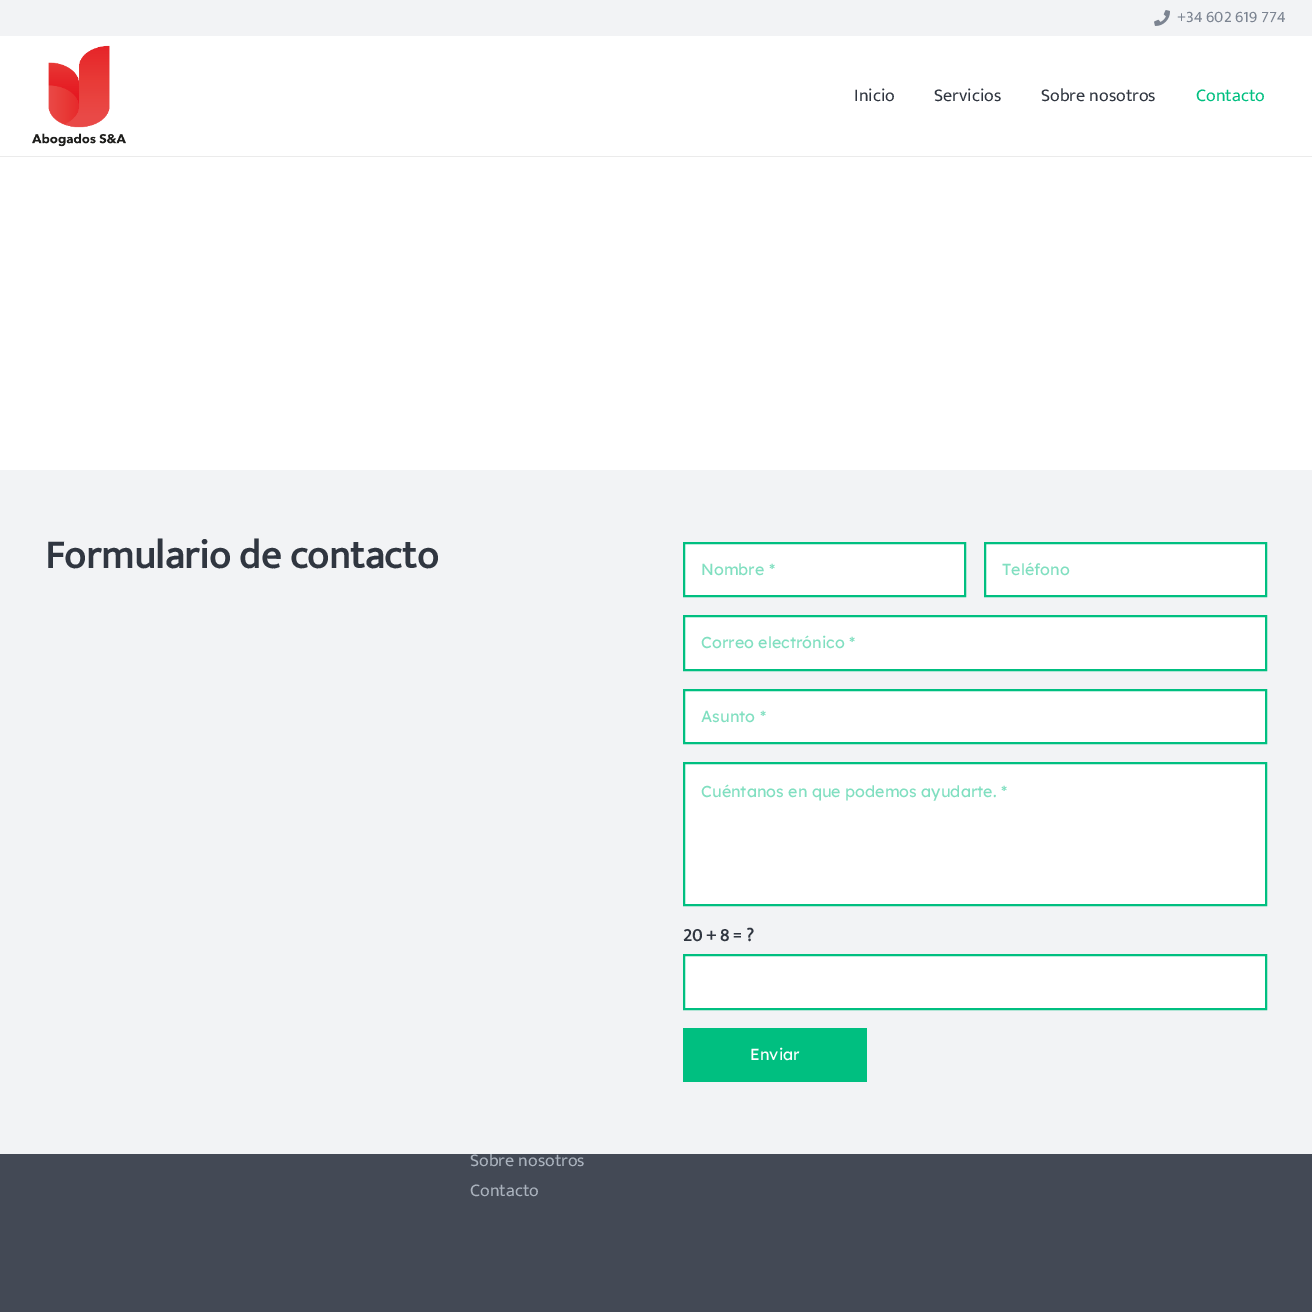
%!PS-Adobe-3.0
%%BoundingBox: 0 0 1312 1312
%%LanguageLevel: 3
%%Pages: 1
%%EndComments
%%BeginProlog
/m { moveto } bind def
/l { lineto } bind def
/h { closepath } bind def
/f { fill } bind def
/S { stroke } bind def
/q { gsave } bind def
/Q { grestore } bind def
/w { setlinewidth } bind def
/fn { [ exch dup neg 0 0 3 -1 roll 0 0 ] selectfont } def
/tx { moveto show } def
/bx { rectfill } def
/im { 5 dict begin { /h /w /y /x /name } { exch def } forall
  gsave x y translate w h scale
  w h 8 [w 0 0 h 0 0] name (r) file false 3 colorimage grestore end } def
%%EndProlog
%%BeginSetup
<< /PageSize [1312 1312] >> setpagedevice
%%EndSetup
%%Page: 1 1
0 1312 translate 1 -1 scale
4 setmiterlimit
0.263 0.286 0.333 setrgbcolor
0 0 1312 1312 bx
1 setgray
0 36 1312 434 bx
0.949 0.953 0.961 setrgbcolor
0 0 1312 36 bx
(image0.raw) 1154 10 16 16 im
/Mukta-Regular 16 fn
0.486 0.518 0.569 setrgbcolor
(+34 602 619 774) 1177 22 tx
0.922 setgray
0 156 1312 1 bx
(image1.raw) 32 45 94 102 im
/Mukta-Regular 18 fn
0.188 0.212 0.251 setrgbcolor
(Inicio) 854 101 tx
(Servicios) 934 101 tx
(Sobre nosotros) 1041 101 tx
0 0.749 0.502 setrgbcolor
(Contacto) 1196 101 tx
0.667 0.698 0.741 setrgbcolor
(Sobre nosotros) 470 1166 tx
0.949 0.953 0.961 setrgbcolor
0 470 1312 684 bx
/Mukta-Bold 40 fn
0.188 0.212 0.251 setrgbcolor
(Formulario de contacto) 45 568 tx
1 setgray
684 543 m 965 543 l 965 596 l 684 596 l h q f Q
0 0.749 0.502 setrgbcolor
2 w
S
/LexendDeca-Regular 16 fn
0.502 0.875 0.753 setrgbcolor
(Nombre *) 701 575 tx
1 setgray
985 543 m 1266 543 l 1266 596 l 985 596 l h q f Q
0 0.749 0.502 setrgbcolor
S
0.502 0.875 0.753 setrgbcolor
(Teléfono) 1002 575 tx
1 setgray
684 616 m 1266 616 l 1266 670 l 684 670 l h q f Q
0 0.749 0.502 setrgbcolor
S
0.502 0.875 0.753 setrgbcolor
(Correo electrónico *) 701 648 tx
1 setgray
684 690 m 1266 690 l 1266 743 l 684 743 l h q f Q
0 0.749 0.502 setrgbcolor
S
0.502 0.875 0.753 setrgbcolor
(Asunto *) 701 722 tx
1 setgray
684 763 m 1266 763 l 1266 905 l 684 905 l h q f Q
0 0.749 0.502 setrgbcolor
S
0.502 0.875 0.753 setrgbcolor
(Cuéntanos en que podemos ayudarte. *) 701 797 tx
/Mukta-Bold 18 fn
0.188 0.212 0.251 setrgbcolor
(20 + 8 = ?) 683 941 tx
1 setgray
684 955 m 1266 955 l 1266 1009 l 684 1009 l h q f Q
0 0.749 0.502 setrgbcolor
S
683 1028 184 54 bx
/LexendDeca-Regular 16 fn
1 setgray
(Enviar) 750 1060 tx
/Mukta-Regular 18 fn
0.667 0.698 0.741 setrgbcolor
(Contacto) 470 1196 tx
showpage
%%EOF
